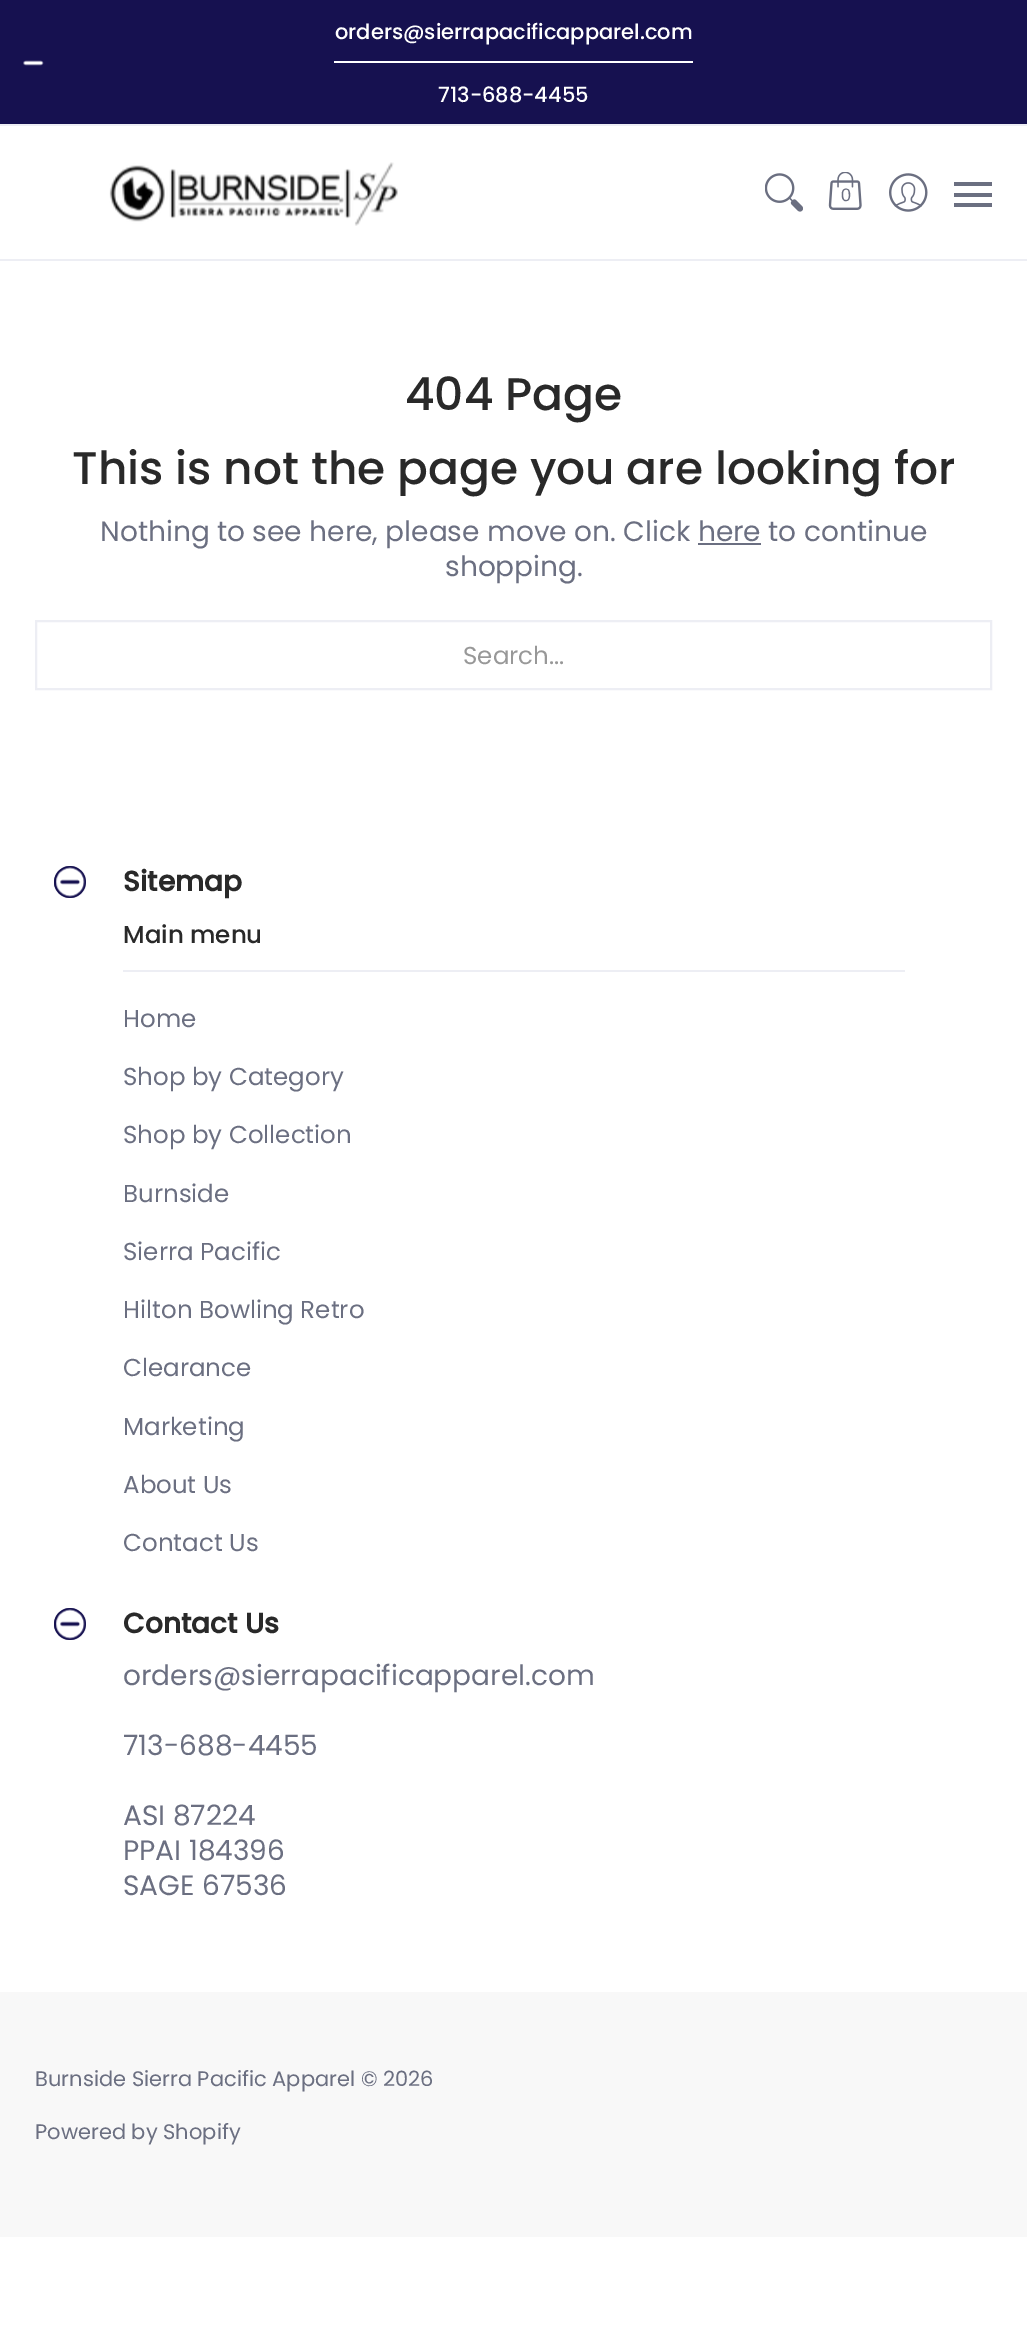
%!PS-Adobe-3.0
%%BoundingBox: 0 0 1027 2340
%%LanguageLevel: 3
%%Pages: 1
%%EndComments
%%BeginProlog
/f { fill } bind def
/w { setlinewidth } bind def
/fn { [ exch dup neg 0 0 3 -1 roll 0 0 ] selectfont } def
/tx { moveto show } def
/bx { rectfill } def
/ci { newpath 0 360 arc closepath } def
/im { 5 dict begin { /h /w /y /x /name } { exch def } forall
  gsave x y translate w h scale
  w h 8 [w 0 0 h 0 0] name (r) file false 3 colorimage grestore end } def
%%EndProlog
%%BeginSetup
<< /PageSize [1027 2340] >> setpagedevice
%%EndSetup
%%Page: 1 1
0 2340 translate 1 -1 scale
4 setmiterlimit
1 setgray
0 0 1027 2340 bx
0.086 0.067 0.314 setrgbcolor
0 0 1027 124 bx
0.929 0.933 0.957 setrgbcolor
0 124 1027 2 bx
/Poppins-Medium 21 fn
1 setgray
(orders@sierrapacificapparel.com) 335 39 tx
(image0.raw) 23 60 21 6 im
334 61 359 2 bx
(713-688-4455) 438 102 tx
0.929 0.933 0.957 setrgbcolor
0 259 1027 2 bx
(image1.raw) 109 162 289 64 im
(image2.raw) 765 173 38 39 im
(image3.raw) 828 172 34 38 im
/LiberationSans-Regular 18 fn
0.42 0.435 0.506 setrgbcolor
(0) 841 201 tx
(image4.raw) 889 173 39 39 im
954 182 38 4 bx
954 203 38 4 bx
954 193 38 4 bx
/Poppins-Medium 45.5 fn
0.161 setgray
(404 Page) 405 410 tx
(This is not the page you are looking for) 72 484 tx
/Poppins-Regular 28 fn
0.42 0.435 0.506 setrgbcolor
(Nothing to see here, please move on. Click here to continue) 100 541 tx
698 543 63 2 bx
(shopping.) 445 576 tx
0.929 0.933 0.957 setrgbcolor
2 w
36 621 955 68 rectstroke
/Poppins-Regular 24.5 fn
0.596 setgray
(Search...) 463 664 tx
/Poppins-Bold 28 fn
0.161 setgray
(Sitemap) 123 891 tx
0.086 0.067 0.314 setrgbcolor
70 882 16 ci f
(image5.raw) 54 866 32 32 im
0.929 0.933 0.957 setrgbcolor
123 970 782 2 bx
/Poppins-Medium 24.5 fn
0.161 setgray
(Main menu) 123 943 tx
/Poppins-Regular 24.5 fn
0.42 0.435 0.506 setrgbcolor
(Home) 123 1027 tx
(Shop by Category) 123 1085 tx
(Shop by Collection) 123 1143 tx
(Burnside) 123 1202 tx
(Sierra Pacific) 123 1260 tx
(Hilton Bowling Retro) 123 1318 tx
(Clearance) 123 1376 tx
(Marketing) 123 1435 tx
(About Us) 123 1493 tx
(Contact Us) 123 1551 tx
/Poppins-Bold 28 fn
0.161 setgray
(Contact Us) 123 1633 tx
/Poppins-Regular 28 fn
0.42 0.435 0.506 setrgbcolor
(orders@sierrapacificapparel.com) 123 1685 tx
0.086 0.067 0.314 setrgbcolor
70 1624 16 ci f
(image5.raw) 54 1608 32 32 im
0.42 0.435 0.506 setrgbcolor
(713-688-4455) 123 1755 tx
(ASI 87224) 123 1825 tx
(PPAI 184396) 123 1860 tx
(SAGE 67536) 123 1895 tx
0.973 setgray
0 1992 1027 245 bx
/Poppins-Regular 21 fn
0.42 0.435 0.506 setrgbcolor
(Burnside Sierra Pacific Apparel © 2026) 35 2086 tx
(Powered by Shopify) 35 2139 tx
showpage
%%EOF
